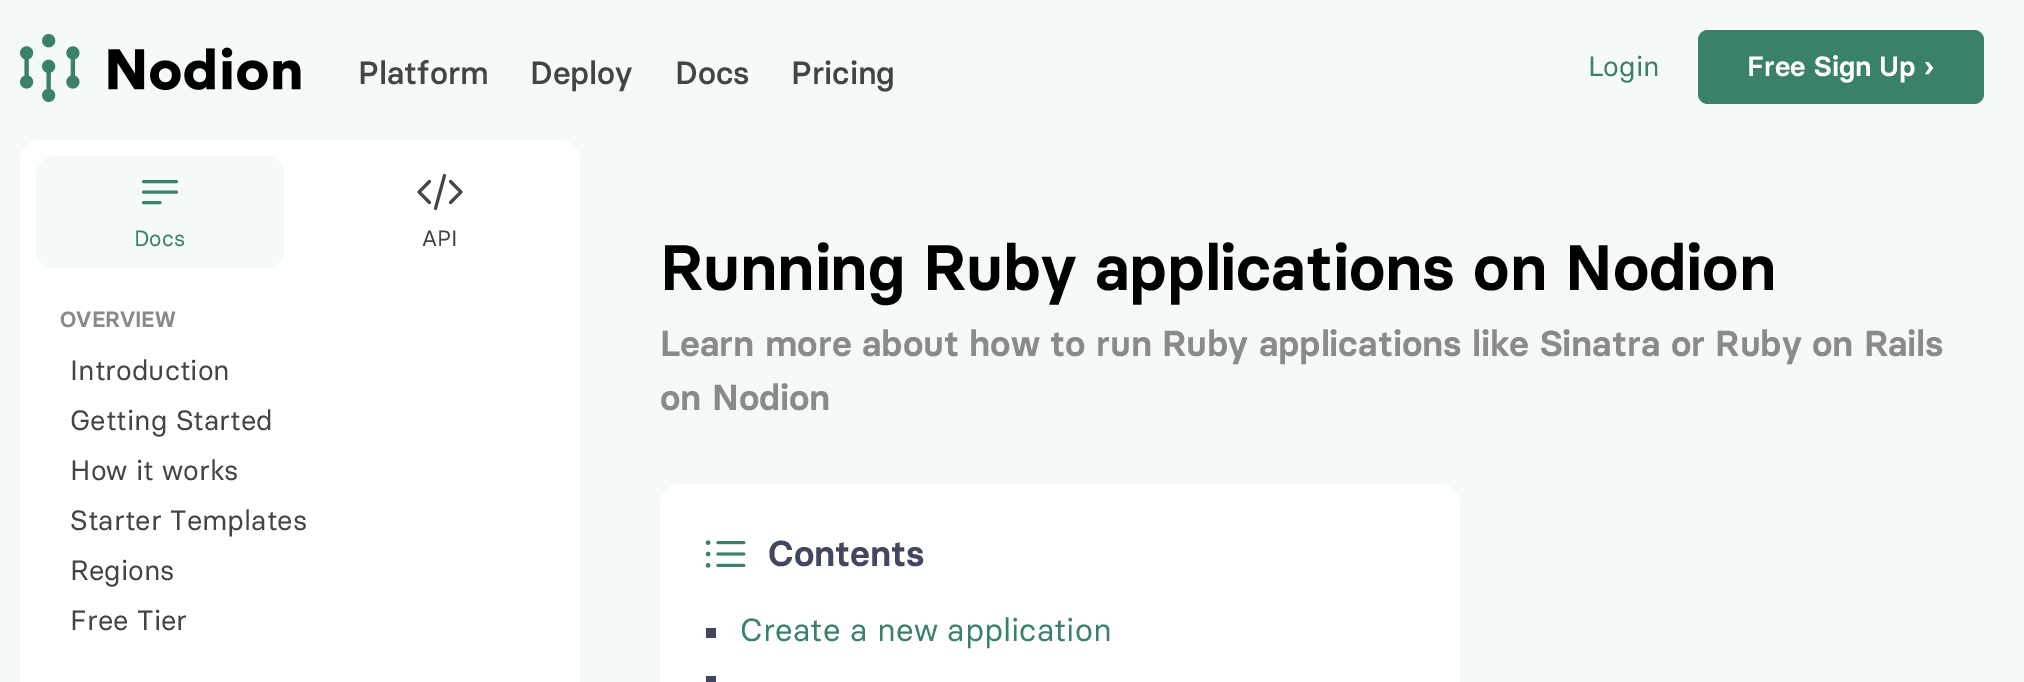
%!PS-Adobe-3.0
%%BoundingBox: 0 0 2024 682
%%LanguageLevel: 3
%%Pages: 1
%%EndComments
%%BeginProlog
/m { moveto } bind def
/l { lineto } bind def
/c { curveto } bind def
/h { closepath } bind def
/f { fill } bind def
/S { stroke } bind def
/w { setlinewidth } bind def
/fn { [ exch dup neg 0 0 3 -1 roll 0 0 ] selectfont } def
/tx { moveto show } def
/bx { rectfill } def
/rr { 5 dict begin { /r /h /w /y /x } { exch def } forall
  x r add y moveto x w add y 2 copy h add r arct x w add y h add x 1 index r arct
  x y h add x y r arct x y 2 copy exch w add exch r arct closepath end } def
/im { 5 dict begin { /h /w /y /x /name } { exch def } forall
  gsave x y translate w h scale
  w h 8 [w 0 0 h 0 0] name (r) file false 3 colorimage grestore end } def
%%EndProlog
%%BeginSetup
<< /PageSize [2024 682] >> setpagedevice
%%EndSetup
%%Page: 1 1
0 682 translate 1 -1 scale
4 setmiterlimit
0.961 0.976 0.969 setrgbcolor
0 0 2024 682 bx
(image0.raw) 20 34 281 68 im
/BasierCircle-Medium 32 fn
0.267 setgray
(Platform) 358 84 tx
(Deploy) 530 84 tx
(Docs) 675 84 tx
(Pricing) 791 84 tx
/BasierCircle-Regular 28 fn
0.224 0.51 0.404 setrgbcolor
(Login) 1588 76 tx
1698 30 286 74 10 rr f
/BasierCircle-SemiBold 28 fn
1 setgray
(Free Sign Up ›) 1747 76 tx
20 140 560 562 20 rr f
0.961 0.976 0.969 setrgbcolor
56 156 m 268 156 l 277 156 284 163 284 172 c 284 252 l 284 261 277 268 268 268 c 52 268 l 43 268 36 261 36 252 c 36 176 l 36 165 45 156 56 156 c h f
0.224 0.51 0.404 setrgbcolor
3 w
1 setlinecap
1 setlinejoin
143.5 181.5 m 176.5 181.5 l 143.5 192 m 176.5 192 l 143.5 202.5 m 160 202.5 l S
/BasierCircle-Regular 22 fn
(Docs) 134 246 tx
0.267 setgray
450.5 181.5 m 461 192 l 450.5 202.5 l 429.5 202.5 m 419 192 l 429.5 181.5 l 444.5 175.5 m 435.5 208.5 l S
(API) 422 246 tx
/BasierCircle-SemiBold 22 fn
0.541 setgray
(OVERVIEW) 60 327 tx
/BasierCircle-Regular 28 fn
0.267 setgray
(Introduction) 70 380 tx
(Getting Started) 70 430 tx
(How it works) 70 480 tx
(Starter Templates) 70 530 tx
(Regions) 70 580 tx
(Free Tier) 70 630 tx
/BasierCircle-SemiBold 64 fn
0 setgray
(Running Ruby applications on Nodion) 660 290 tx
/BasierCircle-SemiBold 36 fn
0.541 setgray
(Learn more about how to run Ruby applications like Sinatra or Ruby on Rails) 660 356 tx
(on Nodion) 660 410 tx
1 setgray
660 484 800 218 20 rr f
(image1.raw) 705 540 41 28 im
0.255 0.278 0.369 setrgbcolor
(Contents) 768 566 tx
706 628 10 10 bx
/BasierCircle-Regular 32 fn
0.224 0.51 0.404 setrgbcolor
(Create a new application) 740 641 tx
0.255 0.278 0.369 setrgbcolor
706 676 10 6 bx
showpage
%%EOF
